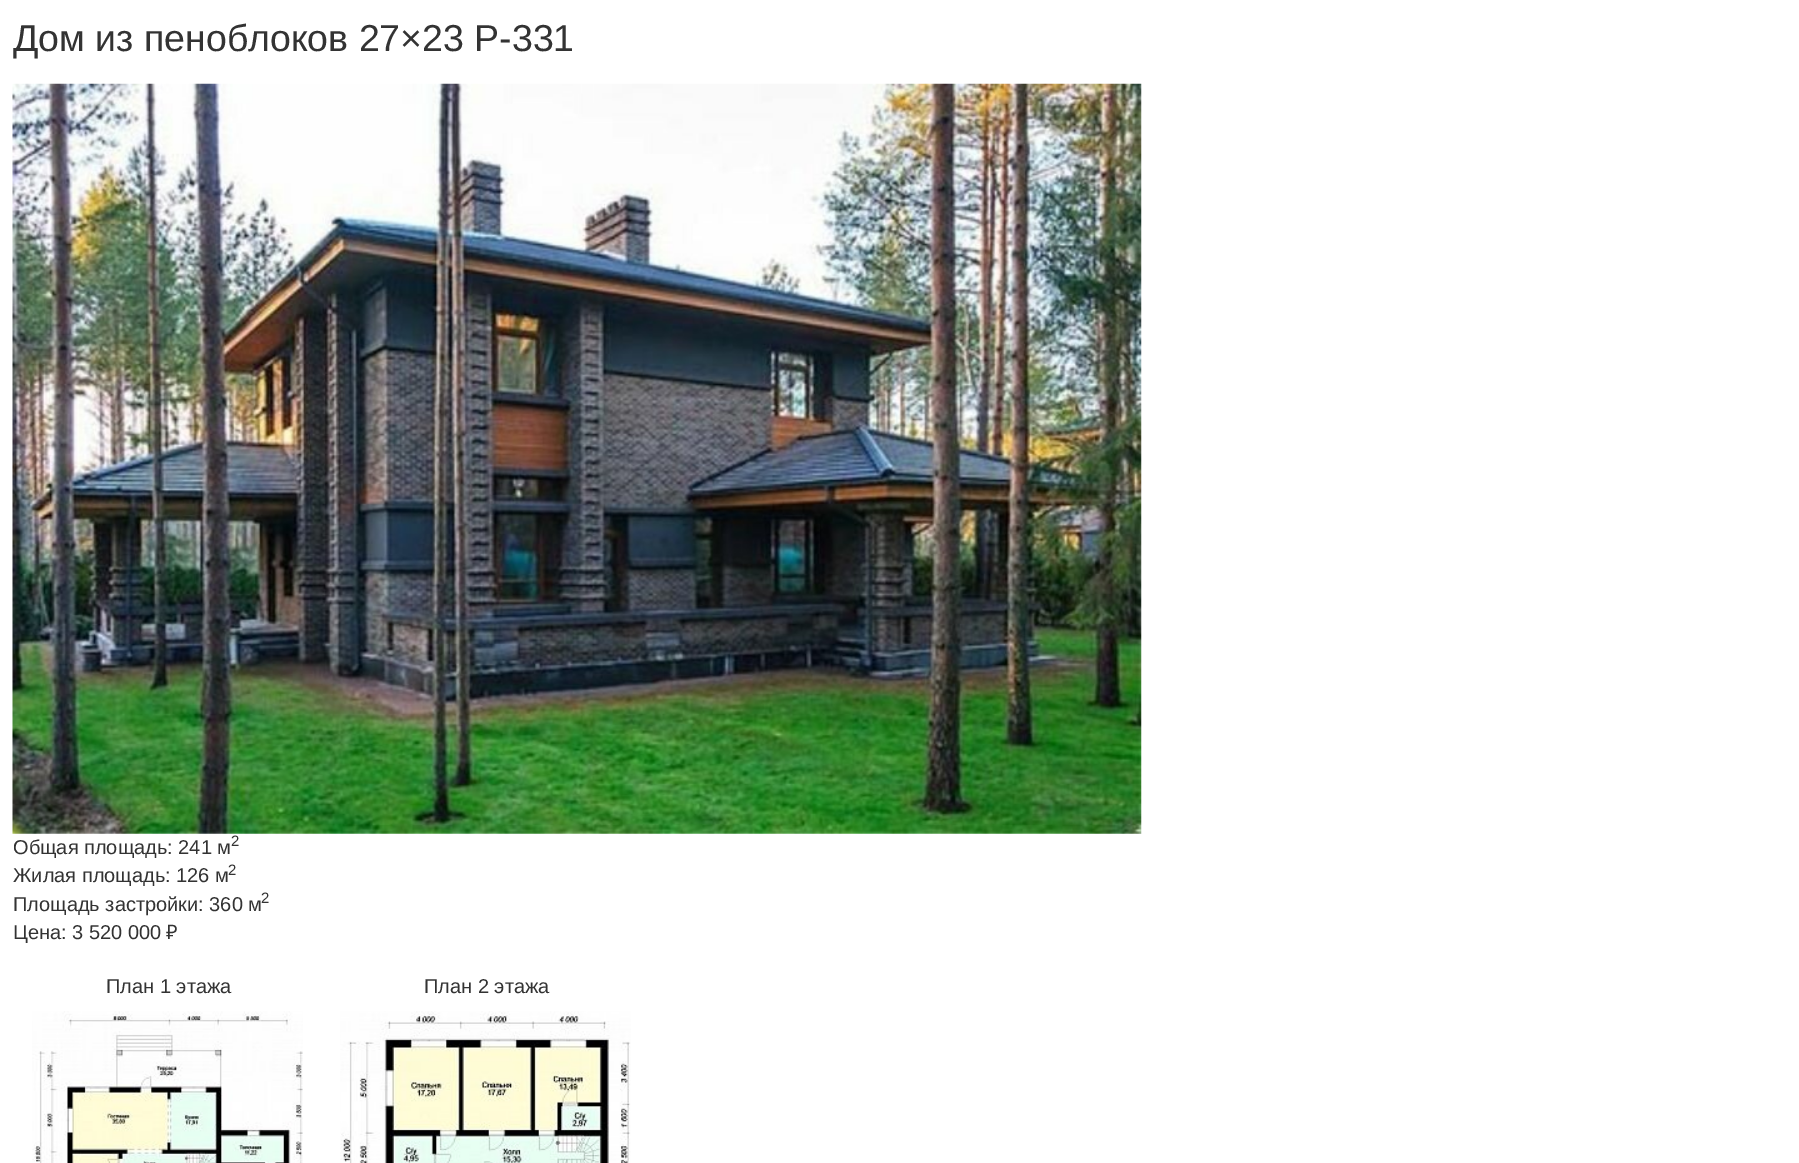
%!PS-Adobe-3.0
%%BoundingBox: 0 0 1799 1163
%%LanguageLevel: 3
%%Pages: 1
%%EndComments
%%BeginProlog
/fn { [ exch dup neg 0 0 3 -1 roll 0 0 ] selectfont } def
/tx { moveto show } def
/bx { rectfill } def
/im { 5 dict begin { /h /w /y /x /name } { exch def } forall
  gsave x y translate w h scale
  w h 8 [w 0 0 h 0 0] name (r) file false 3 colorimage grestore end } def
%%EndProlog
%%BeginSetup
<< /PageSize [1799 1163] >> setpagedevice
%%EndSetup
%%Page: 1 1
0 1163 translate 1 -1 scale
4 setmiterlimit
1 setgray
0 0 1799 1163 bx
/LiberationSans-Regular 37.5 fn
0.2 setgray
(Дом из пеноблоков 27×23 Р-331) 13 51 tx
(image0.raw) 12 83 1130 751 im
/LiberationSans-Regular 20 fn
(Общая площадь: 241 м) 13 854 tx
/LiberationSans-Regular 15 fn
(2) 231 846 tx
/LiberationSans-Regular 20 fn
(Жилая площадь: 126 м) 13 882 tx
/LiberationSans-Regular 15 fn
(2) 228 875 tx
/LiberationSans-Regular 20 fn
(Площадь застройки: 360 м) 13 911 tx
/LiberationSans-Regular 15 fn
(2) 261 903 tx
/LiberationSans-Regular 20 fn
(Цена: 3 520 000) 13 939 tx
/NotoSans-Regular 20 fn
(₽) 166 939 tx
/LiberationSans-Regular 20 fn
(План 1 этажа) 106 993 tx
(image1.raw) 32 1011 271 152 im
(План 2 этажа) 424 993 tx
(image2.raw) 340 1011 291 152 im
showpage
%%EOF
